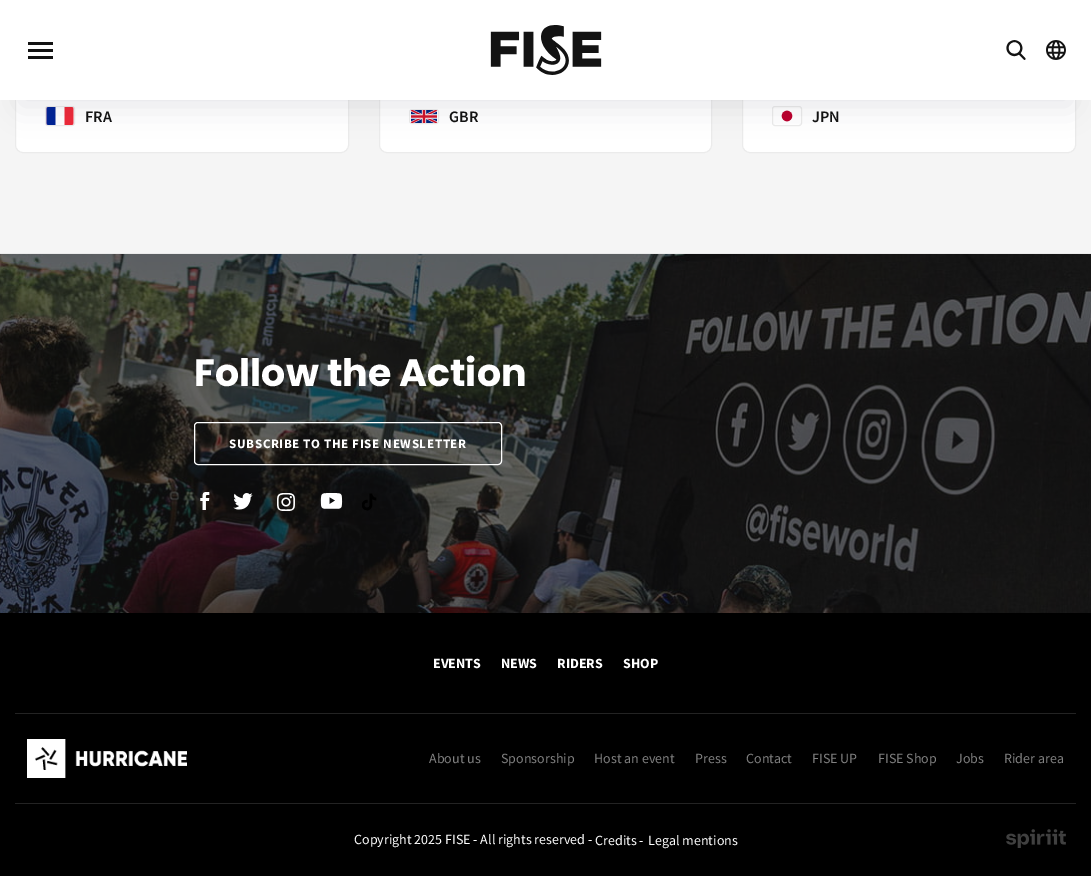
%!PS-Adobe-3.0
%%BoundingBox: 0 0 1091 876
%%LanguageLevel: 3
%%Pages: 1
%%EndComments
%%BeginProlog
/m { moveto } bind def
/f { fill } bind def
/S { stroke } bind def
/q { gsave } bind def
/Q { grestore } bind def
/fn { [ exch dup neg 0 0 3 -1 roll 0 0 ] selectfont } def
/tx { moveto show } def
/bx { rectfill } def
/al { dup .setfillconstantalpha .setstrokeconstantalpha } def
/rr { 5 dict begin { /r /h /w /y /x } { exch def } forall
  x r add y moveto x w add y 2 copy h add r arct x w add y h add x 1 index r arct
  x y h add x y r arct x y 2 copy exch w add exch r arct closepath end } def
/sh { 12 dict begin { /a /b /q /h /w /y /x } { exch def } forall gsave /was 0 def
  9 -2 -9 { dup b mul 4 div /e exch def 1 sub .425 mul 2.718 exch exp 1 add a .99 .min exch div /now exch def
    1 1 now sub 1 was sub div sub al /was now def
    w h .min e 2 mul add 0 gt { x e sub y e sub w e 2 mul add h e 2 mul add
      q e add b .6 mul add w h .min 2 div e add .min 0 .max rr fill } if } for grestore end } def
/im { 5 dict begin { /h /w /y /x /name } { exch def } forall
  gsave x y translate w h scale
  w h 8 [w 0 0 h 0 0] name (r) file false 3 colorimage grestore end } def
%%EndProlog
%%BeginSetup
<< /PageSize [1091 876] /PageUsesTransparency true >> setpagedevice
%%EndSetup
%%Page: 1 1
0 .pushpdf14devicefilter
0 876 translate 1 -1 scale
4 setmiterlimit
0.922 setgray
0 0 1091 876 bx
0.961 setgray
0 100 1091 153 bx
1 setgray
15.5 -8.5 333 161 7.5 rr q f Q
0.922 setgray
S
45.5 106.5 29 19 2.5 rr S
(image3.raw) 46 107 28 18 im
1 setgray
379.5 -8.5 332 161 7.5 rr q f Q
0.922 setgray
S
409.5 109.5 29 14 2.5 rr S
(image4.raw) 410 110 28 13 im
1 setgray
742.5 -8.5 333 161 7.5 rr q f Q
0.922 setgray
S
772.5 106.5 29 19 2.5 rr S
(image5.raw) 781 110 12 12 im
0.149 0.149 0.243 setrgbcolor
20 45 1051 60 0 15 0.12 sh
1 setgray
0 0 1091 100 bx
0.075 setgray
28 49 25 3 bx
28 42 25 3 bx
28 56 25 3 bx
(image0.raw) 490 25 112 50 im
(image1.raw) 1006 40 20 20 im
(image2.raw) 1046 40 20 20 im
/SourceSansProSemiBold-SemiBold 16 fn
(FRA) 85 122 tx
(GBR) 449 122 tx
(JPN) 812 122 tx
(image6.raw) 0 254 1091 359 im
/Poppins-Bold 38 fn
1 setgray
(Follow the Action) 194 386 tx
194.5 422.5 307 42 3.5 rr S
/SourceSansPro-Bold 13 fn
229 448 m 0.65 0 (SUBSCRIBE TO THE FISE NEWSLETTER) ashow
(image7.raw) 200 492 10 18 im
(image8.raw) 233 493 20 17 im
(image9.raw) 277 493 18 18 im
(image10.raw) 320 493 23 16 im
(image11.raw) 362 493 15 18 im
0 setgray
0 613 1091 263 bx
/SourceSansPro-Bold 14 fn
1 setgray
(EVENTS) 433 668 tx
(NEWS) 501 668 tx
(RIDERS) 557 668 tx
(SHOP) 623 668 tx
0.137 setgray
15 713 1061 1 bx
15 803 1061 1 bx
(image12.raw) 27 739 160 39 im
/SourceSansPro-Regular 14 fn
0.502 setgray
(About us) 429 763 tx
(Sponsorship) 501 763 tx
(Host an event) 594 763 tx
(Press) 695 763 tx
(Contact) 746 763 tx
(FISE UP) 812 763 tx
(FISE Shop) 878 763 tx
(Jobs) 956 763 tx
(Rider area) 1004 763 tx
1 setgray
(Copyright 2025 FISE - All rights reserved -) 354 844 tx
(Credits -) 595 845 tx
(Legal mentions) 648 845 tx
(image13.raw) 1006 829 60 19 im
.poppdf14devicefilter showpage
%%EOF
